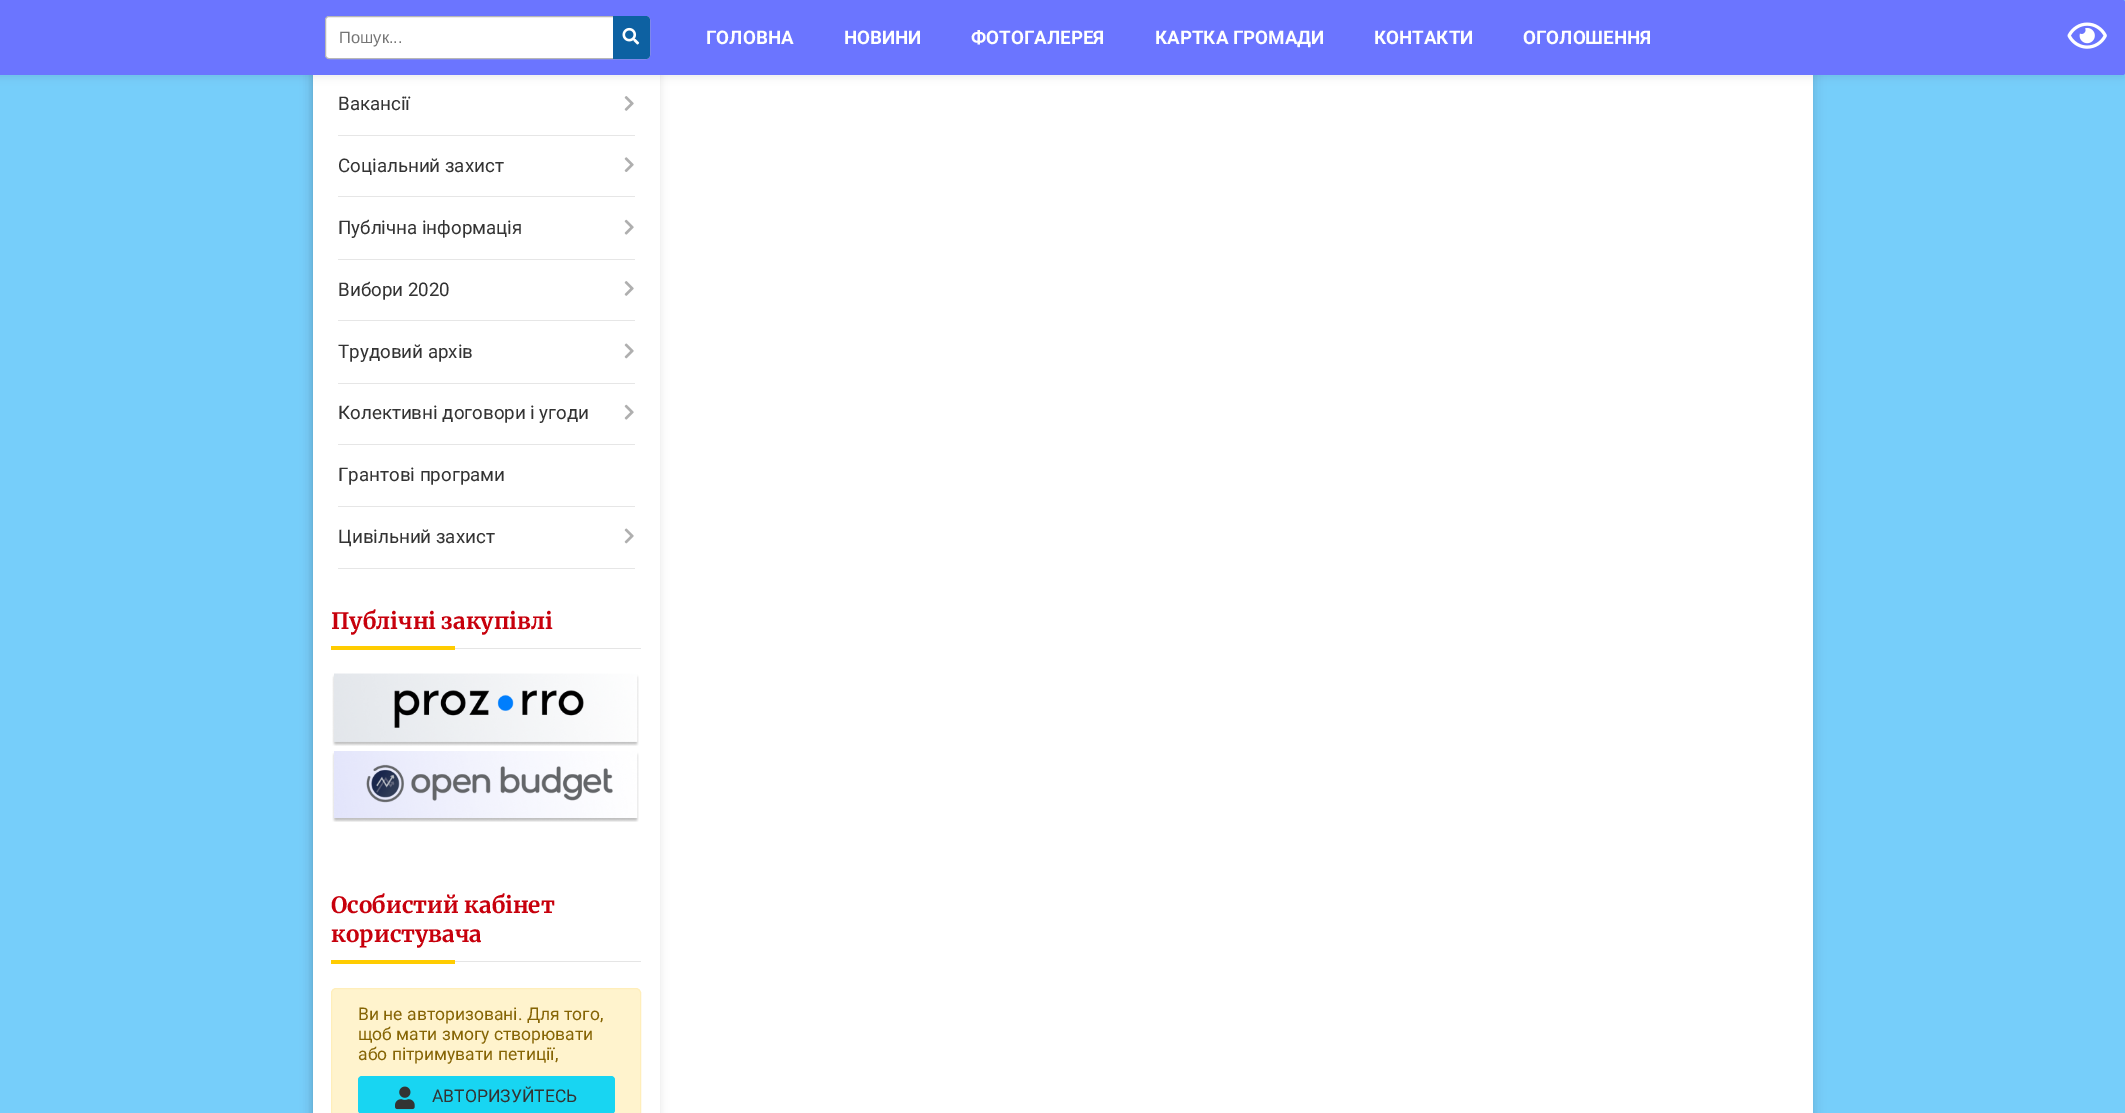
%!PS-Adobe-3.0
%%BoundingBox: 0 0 2125 1113
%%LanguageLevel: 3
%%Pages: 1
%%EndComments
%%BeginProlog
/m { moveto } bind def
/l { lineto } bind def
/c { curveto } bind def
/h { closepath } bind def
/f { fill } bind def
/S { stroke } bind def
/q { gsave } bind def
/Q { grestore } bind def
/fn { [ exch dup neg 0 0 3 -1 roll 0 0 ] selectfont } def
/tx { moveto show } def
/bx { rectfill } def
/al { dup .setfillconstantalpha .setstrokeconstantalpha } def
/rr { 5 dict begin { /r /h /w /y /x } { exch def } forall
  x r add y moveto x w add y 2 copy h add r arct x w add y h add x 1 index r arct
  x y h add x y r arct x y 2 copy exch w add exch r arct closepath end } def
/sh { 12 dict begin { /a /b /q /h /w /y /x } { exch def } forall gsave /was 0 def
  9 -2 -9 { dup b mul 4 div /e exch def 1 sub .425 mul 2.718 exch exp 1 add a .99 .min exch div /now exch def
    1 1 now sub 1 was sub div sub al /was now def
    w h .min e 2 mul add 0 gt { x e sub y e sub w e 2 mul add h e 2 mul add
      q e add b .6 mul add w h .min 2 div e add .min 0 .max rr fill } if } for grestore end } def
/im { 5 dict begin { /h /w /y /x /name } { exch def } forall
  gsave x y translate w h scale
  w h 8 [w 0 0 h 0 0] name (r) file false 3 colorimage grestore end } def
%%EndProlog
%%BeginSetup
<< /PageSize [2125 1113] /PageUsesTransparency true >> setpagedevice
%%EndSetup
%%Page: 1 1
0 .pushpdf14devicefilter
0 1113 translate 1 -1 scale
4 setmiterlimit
1 setgray
0 0 2125 1113 bx
q 0 0 m 2125 0 l 2125 1113 l 0 1113 l h clip newpath
<< /ShadingType 2 /ColorSpace /DeviceRGB /Coords [1062 -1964 1063 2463] /Extend [true true] /Function << /FunctionType 3 /Domain [0 1] /Functions [<< /FunctionType 2 /Domain [0 1] /C0 [1 1 1] /C1 [1 1 1] /N 1 >> << /FunctionType 2 /Domain [0 1] /C0 [1 1 1] /C1 [0.463 0.808 0.98] /N 1 >> << /FunctionType 2 /Domain [0 1] /C0 [0.463 0.808 0.98] /C1 [0.463 0.808 0.98] /N 1 >>] /Bounds [0.11 0.23] /Encode [0 1 0 1 0 1] >> >> shfill Q
0 setgray
313 -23 1500 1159 5 6 0.15 sh
1 setgray
313 75 1500 1038 bx
0 setgray
-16 1 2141 75 2.5 4.5 0.1 sh
q
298 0 m 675 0 l 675 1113 l 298 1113 l h 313 -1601 m 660 -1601 l 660 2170 l 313 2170 l h eoclip newpath
313 -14 347 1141 0 4.5 0.1 sh
Q
0.42 0.459 1 setrgbcolor
-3 0 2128 75 2.5 rr f
/Roboto-Bold 18.75 fn
1 setgray
(ГОЛОВНА) 706 44 tx
(НОВИНИ) 844 44 tx
(ФОТОГАЛЕРЕЯ) 971 44 tx
(КАРТКА ГРОМАДИ) 1155 44 tx
(КОНТАКТИ) 1374 44 tx
(ОГОЛОШЕННЯ) 1523 44 tx
/Roboto-Regular 18.75 fn
0.2 setgray
(Вакансії) 338 110 tx
0.902 setgray
338 135 297 1 bx
(image0.raw) 624 96 10 15 im
0.2 setgray
(Соціальний захист) 338 172 tx
0.902 setgray
338 196 297 1 bx
(image1.raw) 624 157 10 15 im
0.2 setgray
(Публічна інформація) 338 234 tx
0.902 setgray
338 259 297 1 bx
(image2.raw) 624 219 10 16 im
0.2 setgray
(Вибори 2020) 338 296 tx
0.902 setgray
338 320 297 1 bx
(image0.raw) 624 281 10 15 im
0.2 setgray
(Трудовий архів) 338 358 tx
0.902 setgray
338 383 297 1 bx
(image3.raw) 624 343 10 16 im
0.2 setgray
(Колективні договори і угоди) 338 419 tx
0.902 setgray
338 444 297 1 bx
(image2.raw) 624 404 10 16 im
0.2 setgray
(Грантові програми) 338 481 tx
0.902 setgray
338 506 297 1 bx
0.2 setgray
(Цивільний захист) 338 543 tx
0.902 setgray
338 568 297 1 bx
(image3.raw) 624 528 10 16 im
0.898 setgray
455 648 186 1 bx
/Merriweather-Light 22.5 fn
0.78 0 0.047 setrgbcolor
(Публічні закупівлі) 331 629 tx
1 0.8 0 setrgbcolor
331 646 124 4 bx
(image4.raw) 332 673 307 73 im
(image5.raw) 332 751 307 71 im
0.898 setgray
455 961 186 1 bx
0.78 0 0.047 setrgbcolor
(Особистий кабінет) 331 913 tx
(користувача) 331 942 tx
1 0.8 0 setrgbcolor
331 960 124 4 bx
1 0.953 0.804 setrgbcolor
331.5 988.5 309 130 4.5 rr q f Q
1 0.933 0.729 setrgbcolor
S
/Roboto-Regular 17.5 fn
0.522 0.392 0.016 setrgbcolor
(Ви не авторизовані. Для того,) 358 1020 tx
(щоб мати змогу створювати) 358 1040 tx
(або пітримувати петиції,) 358 1060 tx
0.094 0.835 0.949 setrgbcolor
358 1076 257 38 4 rr f
(image6.raw) 395 1086 20 24 im
0.2 setgray
(АВТОРИЗУЙТЕСЬ) 432 1102 tx
1 setgray
325.5 16.5 324 42 3.5 rr q f Q
0.718 setgray
S
/LiberationSans-Regular 16.5 fn
0.459 setgray
(Пошук...) 339 43 tx
0.051 0.38 0.635 setrgbcolor
613 16 m 646 16 l 648 16 650 18 650 20 c 650 55 l 650 57 648 59 646 59 c 613 59 l h f
(image7.raw) 622 27 18 18 im
(image8.raw) 2067 22 40 27 im
.poppdf14devicefilter showpage
%%EOF
